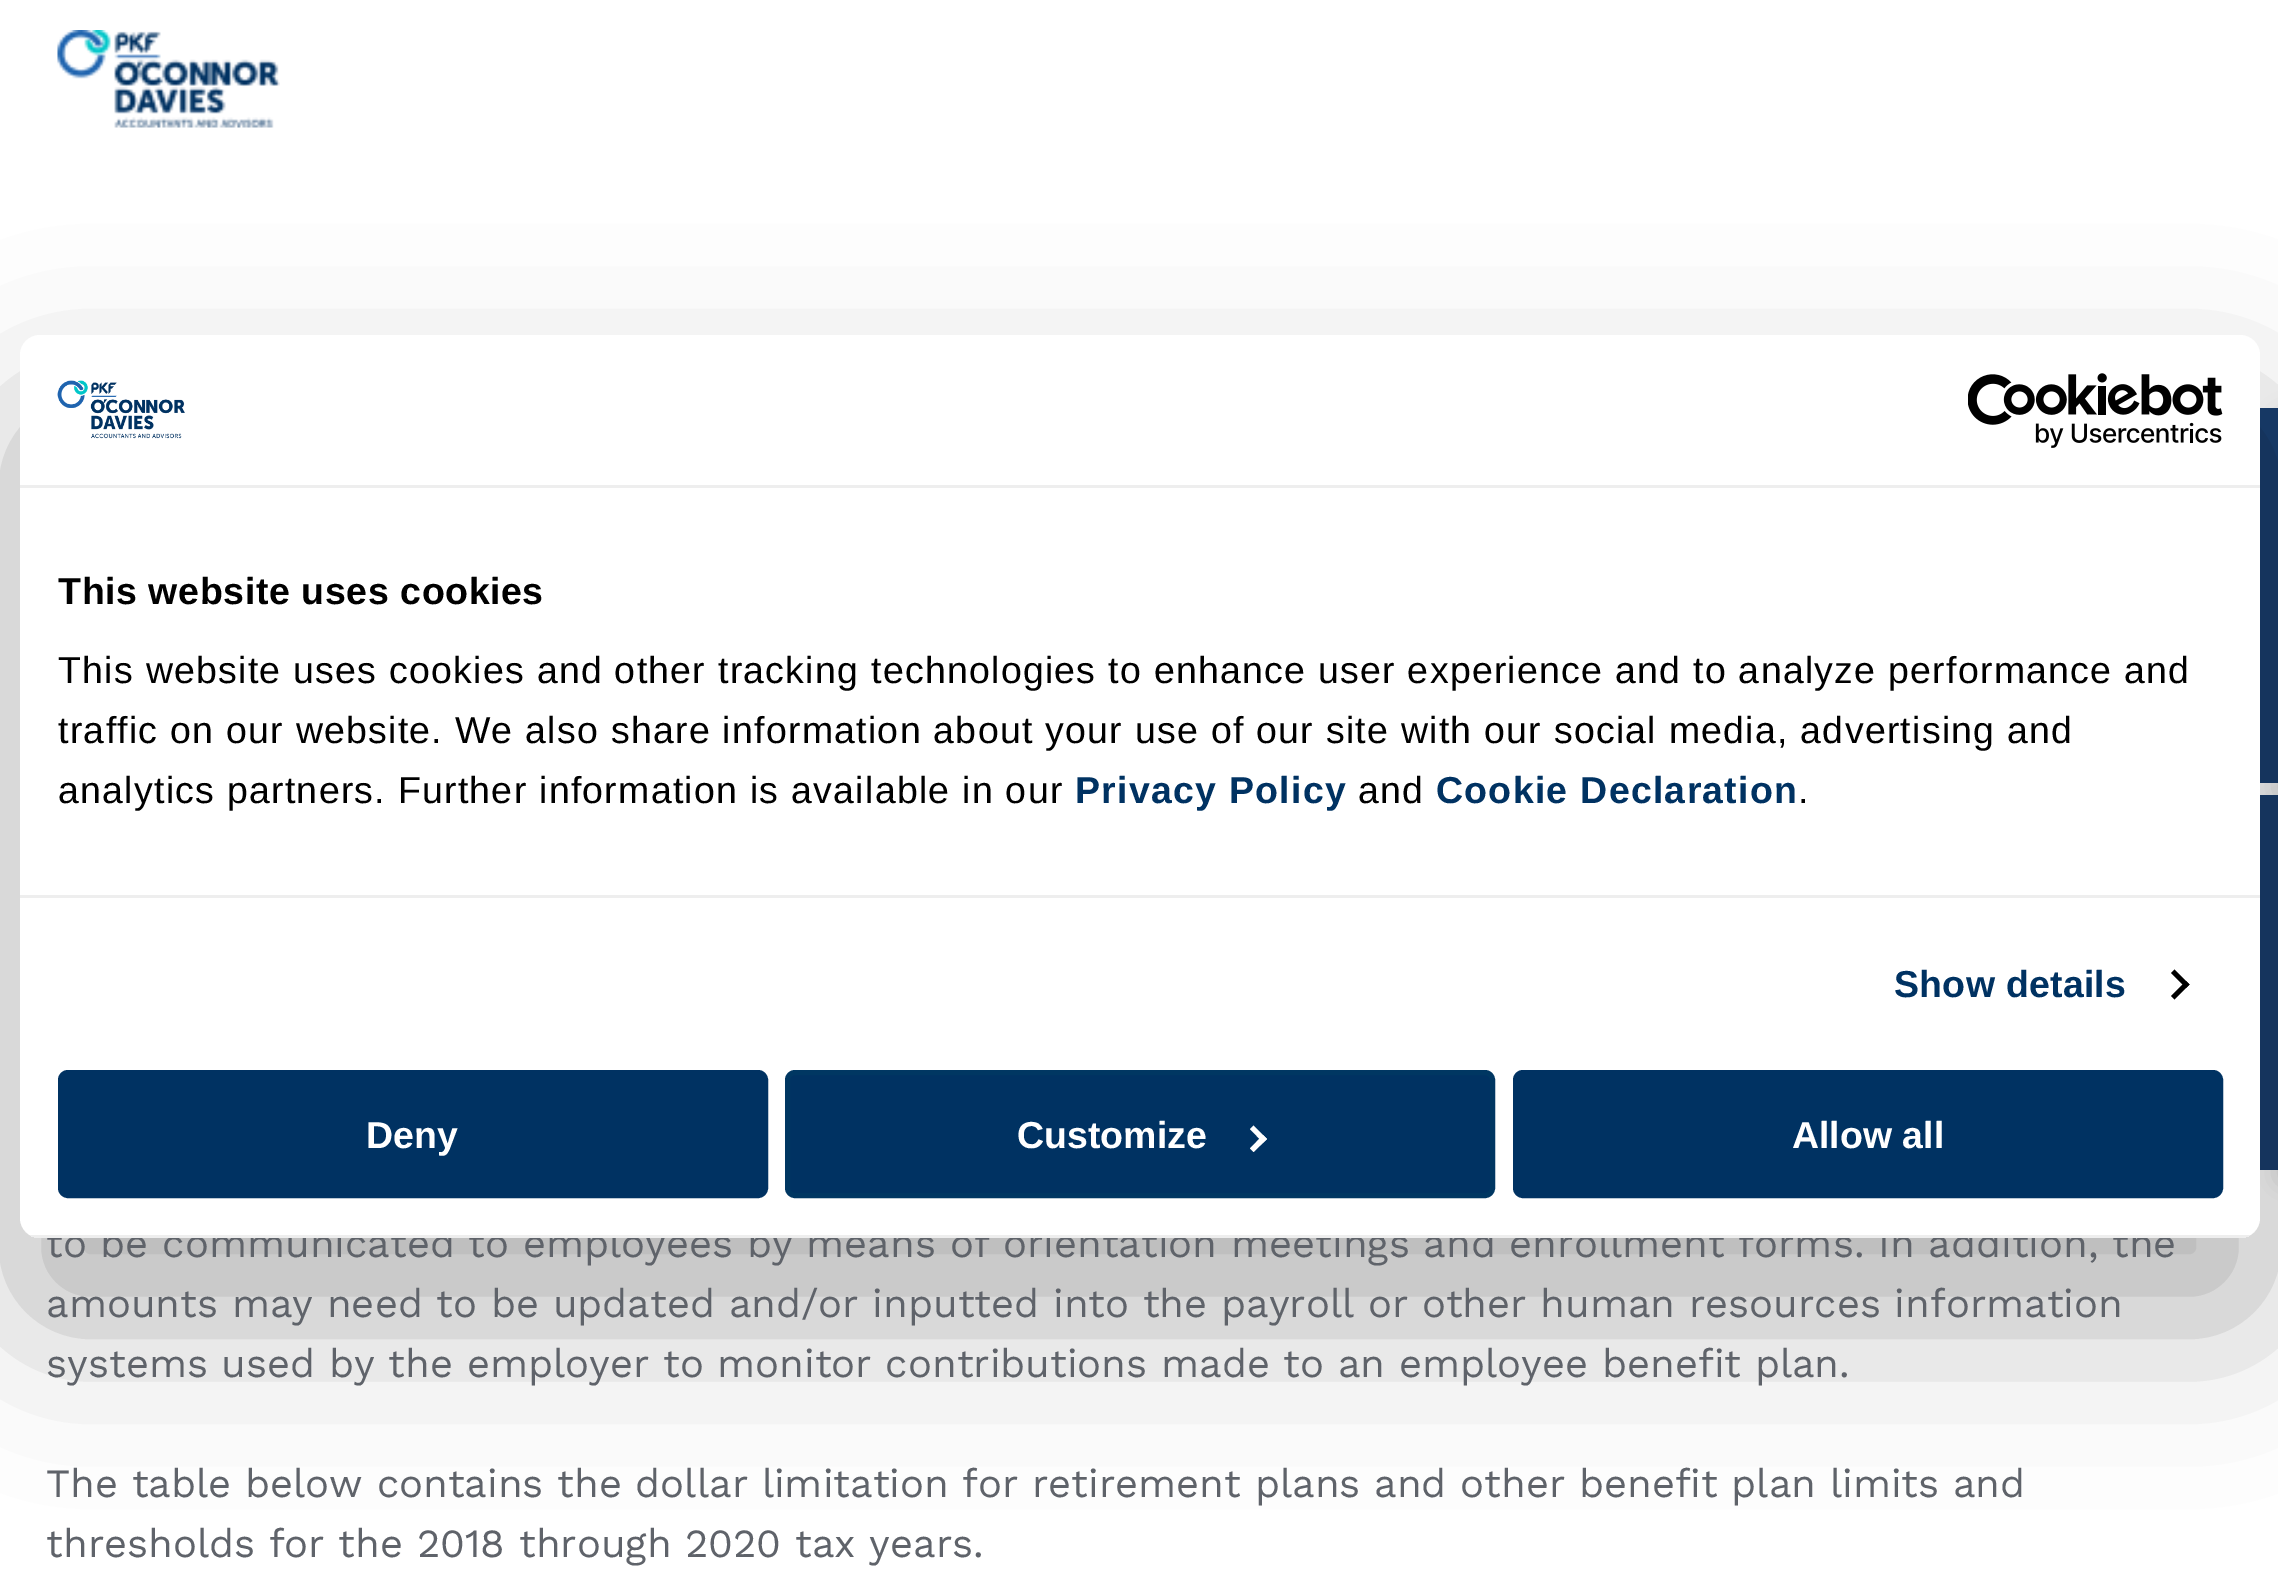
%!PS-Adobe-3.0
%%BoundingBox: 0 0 2278 1571
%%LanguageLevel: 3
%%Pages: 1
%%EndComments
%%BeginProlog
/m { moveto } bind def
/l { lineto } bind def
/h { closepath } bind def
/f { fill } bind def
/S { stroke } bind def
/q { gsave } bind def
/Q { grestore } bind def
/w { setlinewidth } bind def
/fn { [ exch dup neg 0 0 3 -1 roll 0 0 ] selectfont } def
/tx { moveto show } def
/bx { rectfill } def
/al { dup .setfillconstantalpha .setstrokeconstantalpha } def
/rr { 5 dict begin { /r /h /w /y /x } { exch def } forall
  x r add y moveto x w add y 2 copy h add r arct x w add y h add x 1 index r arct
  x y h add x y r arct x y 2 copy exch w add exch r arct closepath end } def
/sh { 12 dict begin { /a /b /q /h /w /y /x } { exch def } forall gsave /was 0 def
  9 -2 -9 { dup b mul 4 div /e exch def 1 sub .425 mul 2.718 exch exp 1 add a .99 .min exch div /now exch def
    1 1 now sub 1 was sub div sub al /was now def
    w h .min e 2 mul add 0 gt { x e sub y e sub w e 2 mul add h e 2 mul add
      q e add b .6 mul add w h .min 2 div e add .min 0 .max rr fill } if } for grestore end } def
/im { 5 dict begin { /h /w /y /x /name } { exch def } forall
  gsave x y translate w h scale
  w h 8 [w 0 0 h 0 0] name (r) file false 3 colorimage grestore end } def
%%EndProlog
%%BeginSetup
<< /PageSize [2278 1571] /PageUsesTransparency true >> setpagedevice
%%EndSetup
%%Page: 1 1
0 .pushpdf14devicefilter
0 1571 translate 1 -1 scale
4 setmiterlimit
1 setgray
0 0 2278 1571 bx
0 setgray
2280 418 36 375 0 12.5 0.15 sh
0.094 0.239 0.431 setrgbcolor
2260 408 18 375 bx
0 setgray
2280 805 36 375 0 12.5 0.15 sh
0.094 0.239 0.431 setrgbcolor
2260 795 18 375 bx
0 setgray
20 415 2240 903 20 85 0.3 sh
/WorkSans-Regular 40 fn
0.373 0.388 0.416 setrgbcolor
(to be communicated to employees by means of orientation meetings and enrollment forms. In addition, the) 46 1257 tx
1 setgray
20 335 2240 903 20 rr f
0.933 setgray
20 485 2240 3 bx
(image0.raw) 57 380 128 59 im
(image1.raw) 1968 373 255 75 im
20 895 2240 3 bx
/LiberationSans-Bold 37.5 fn
0 setgray
58 604 m 0.6 0 (This website uses cookies) ashow
/LiberationSans-Regular 37.5 fn
58 683 m 1.25 0 (This website uses cookies and other tracking technologies to enhance user experience and to analyze performance and) ashow
58 743 m 1.25 0 (traffic on our website. We also share information about your use of our site with our social media, advertising and) ashow
58 803 m 1.25 0 (analytics partners. Further information is available in our) ashow
/LiberationSans-Bold 37.5 fn
0 0.196 0.384 setrgbcolor
1075 803 m 1.25 0 (Privacy Policy) ashow
/LiberationSans-Regular 37.5 fn
0 setgray
1358 803 m 1.25 0 (and) ashow
/LiberationSans-Bold 37.5 fn
0 0.196 0.384 setrgbcolor
1436 803 m 1.25 0 (Cookie Declaration) ashow
/LiberationSans-Regular 37.5 fn
0 setgray
1798 803 m 1.25 0 (.) ashow
/LiberationSans-Bold 37.5 fn
0 0.196 0.384 setrgbcolor
1894 997 m 0.25 0 (Show details) ashow
0 setgray
2174.5 969.5 m 2189.5 984.5 l 2186 988 l 2171 973 l h f
2186 981 m 2189.5 984.5 l 2174.5 999.5 l 2171 996 l h f
q
20 335 2240 903 20 rr clip newpath
0.933 setgray
29 1235 2222 3 bx
Q
0 0.196 0.384 setrgbcolor
60.5 1072.5 705 123 7.5 rr q f Q
5 w
S
1 setgray
(Deny) 366 1148 tx
0 0.196 0.384 setrgbcolor
787.5 1072.5 705 123 7.5 rr q f Q
0 0.216 0.384 setrgbcolor
S
1 setgray
(Customize) 1017 1148 tx
1253.5 1125.5 m 1267 1139 l 1263 1142.5 l 1250 1129 l h f
1263 1135 m 1267 1139 l 1253.5 1152 l 1250 1148.5 l h f
0 0.196 0.384 setrgbcolor
1515.5 1072.5 705 123 7.5 rr q f Q
S
1 setgray
(Allow all) 1792 1148 tx
(image2.raw) 57 30 223 98 im
/WorkSans-Regular 40 fn
0.373 0.388 0.416 setrgbcolor
(amounts may need to be updated and/or inputted into the payroll or other human resources information) 46 1317 tx
(systems used by the employer to monitor contributions made to an employee benefit plan.) 46 1377 tx
(The table below contains the dollar limitation for retirement plans and other benefit plan limits and) 46 1497 tx
(thresholds for the 2018 through 2020 tax years.) 46 1557 tx
.poppdf14devicefilter showpage
%%EOF
